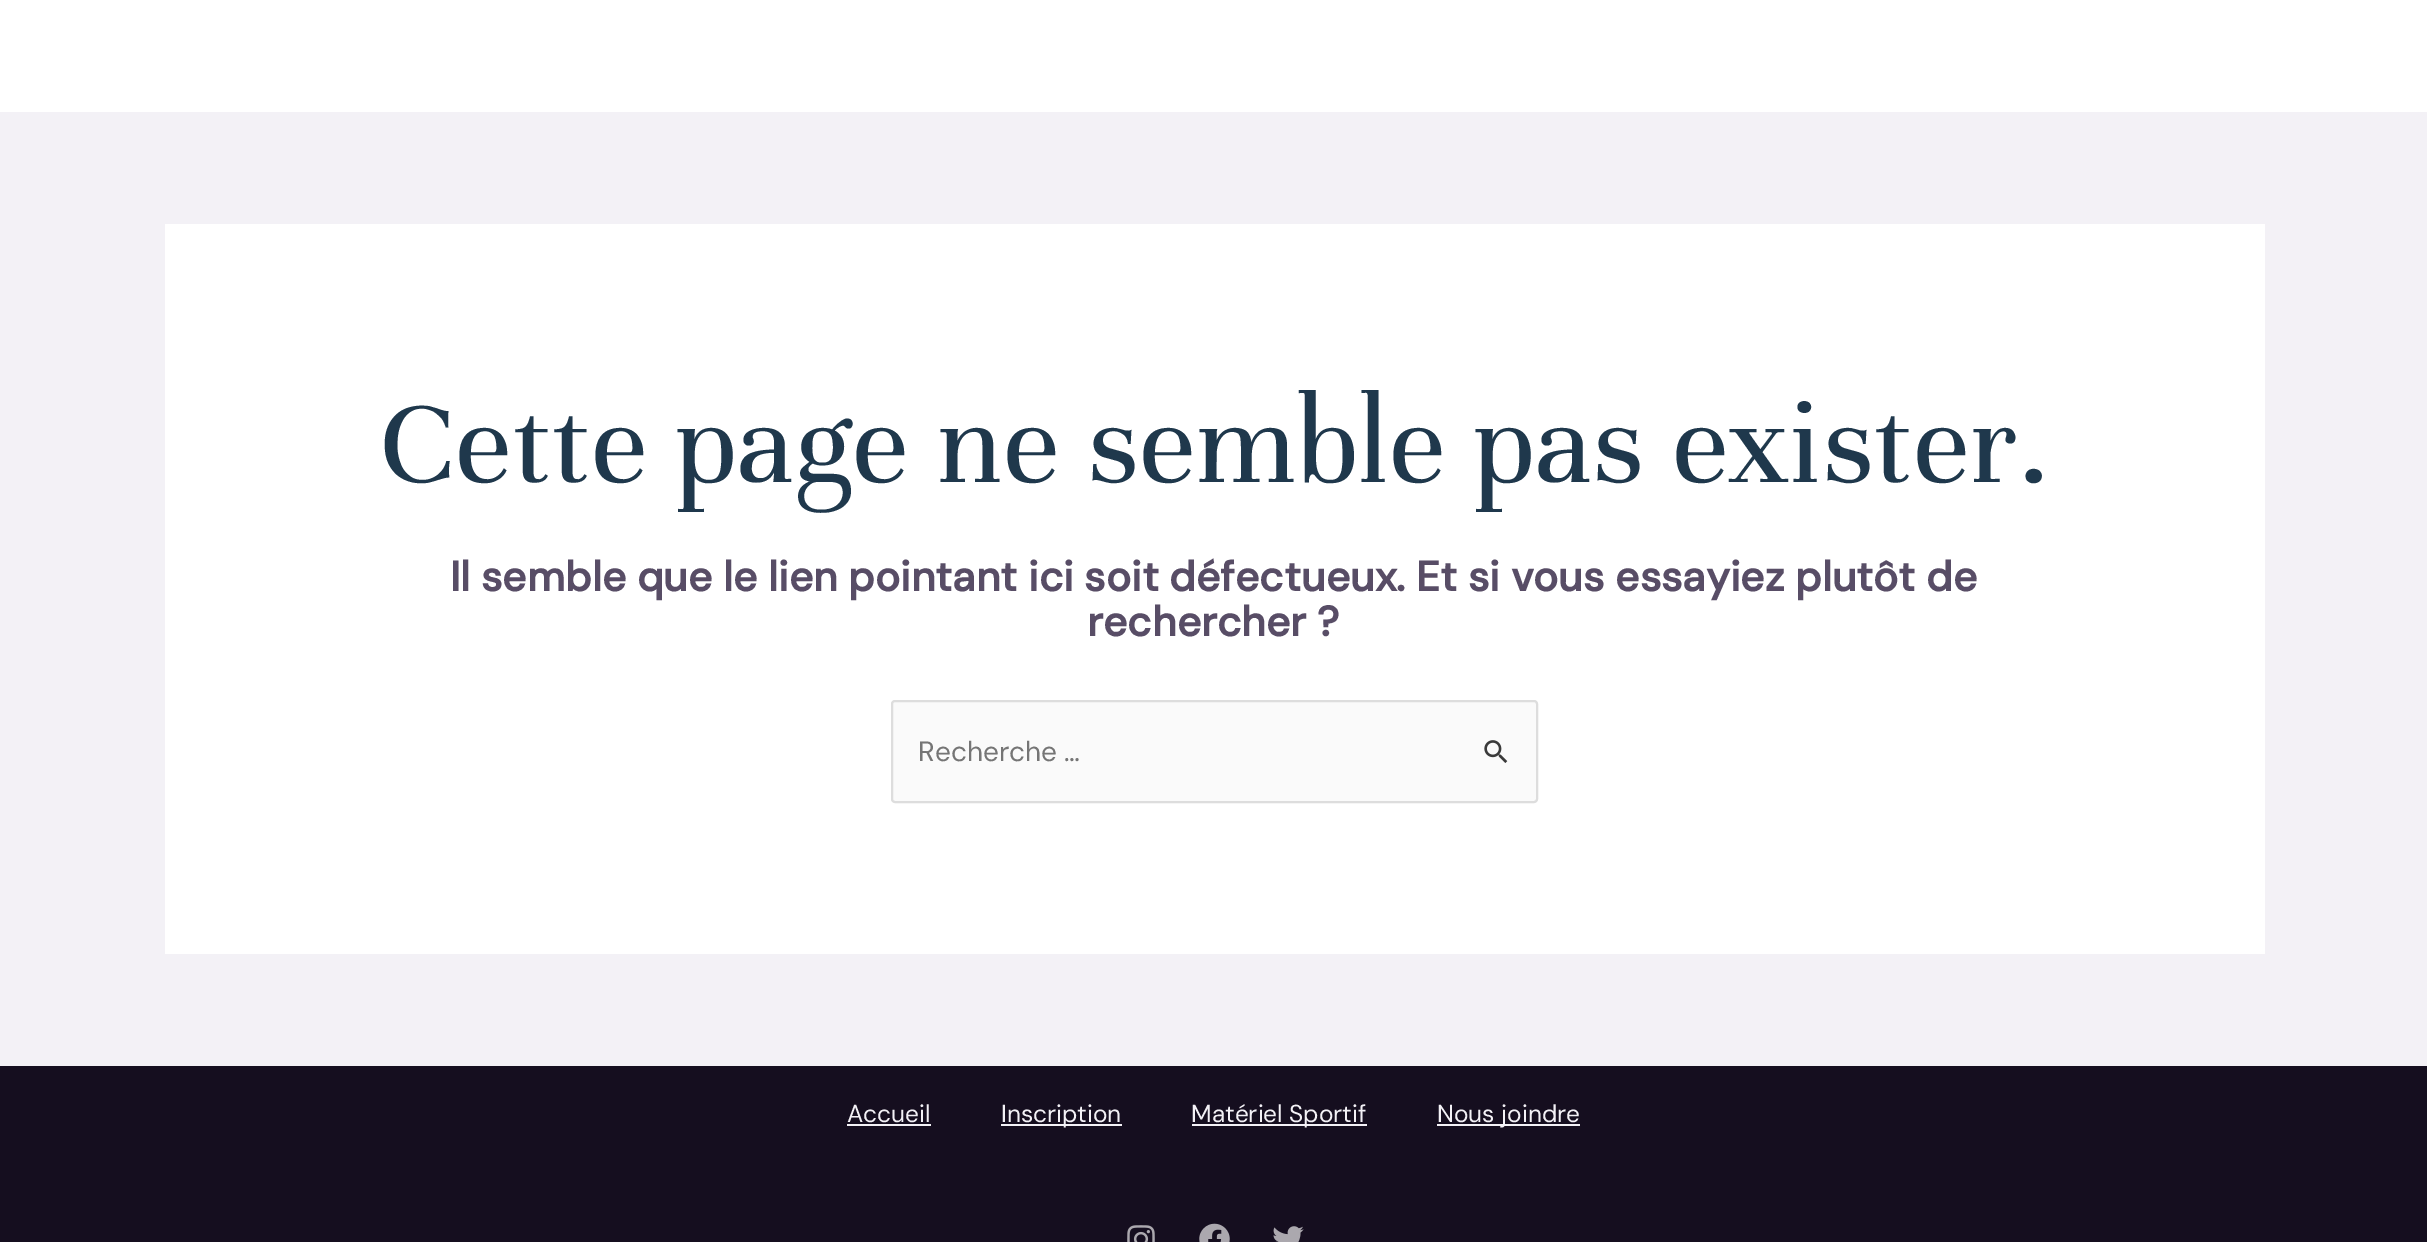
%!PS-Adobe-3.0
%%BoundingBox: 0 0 2427 1242
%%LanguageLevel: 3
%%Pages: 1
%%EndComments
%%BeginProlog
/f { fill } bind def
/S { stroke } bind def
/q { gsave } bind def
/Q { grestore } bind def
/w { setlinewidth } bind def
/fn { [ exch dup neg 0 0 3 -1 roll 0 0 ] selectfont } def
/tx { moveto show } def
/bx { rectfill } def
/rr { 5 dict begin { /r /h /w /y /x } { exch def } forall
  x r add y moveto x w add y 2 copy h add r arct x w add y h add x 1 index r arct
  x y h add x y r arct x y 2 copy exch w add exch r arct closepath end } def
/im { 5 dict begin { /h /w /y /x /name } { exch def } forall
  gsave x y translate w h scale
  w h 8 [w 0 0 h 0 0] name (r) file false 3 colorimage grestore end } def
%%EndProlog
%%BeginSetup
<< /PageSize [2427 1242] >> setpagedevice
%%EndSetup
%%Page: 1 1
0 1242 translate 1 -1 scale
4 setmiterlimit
0.953 0.945 0.965 setrgbcolor
0 0 2427 1242 bx
1 setgray
0 0 2427 112 bx
165 224 2100 730 bx
/Unna-Regular 126 fn
0.122 0.22 0.298 setrgbcolor
(Cette page ne semble pas exister.) 379 482 tx
/DMSans-Bold 42 fn
0.345 0.302 0.4 setrgbcolor
(Il semble que le lien pointant ici soit défectueux. Et si vous essayiez plutôt de) 450 591 tx
(rechercher ?) 1087 636 tx
0.98 setgray
892 701 645 101 3 rr q f Q
0.867 setgray
2 w
S
/DMSans-Regular 28 fn
0.459 setgray
(Recherche …) 918 761 tx
(image0.raw) 1484 740 24 23 im
0.082 0.055 0.122 setrgbcolor
0 1066 2427 176 bx
/DMSans-Regular 24.5 fn
0.953 0.945 0.965 setrgbcolor
(Accueil) 847 1122 tx
847 1124 84 2 bx
1001 1124 121 2 bx
(Inscription) 1001 1122 tx
1192 1124 175 2 bx
(Matériel Sportif) 1191 1122 tx
1437 1124 143 2 bx
(Nous joindre) 1437 1122 tx
(image1.raw) 1127 1225 28 17 im
(image2.raw) 1199 1223 31 19 im
(image3.raw) 1273 1226 31 16 im
showpage
%%EOF
